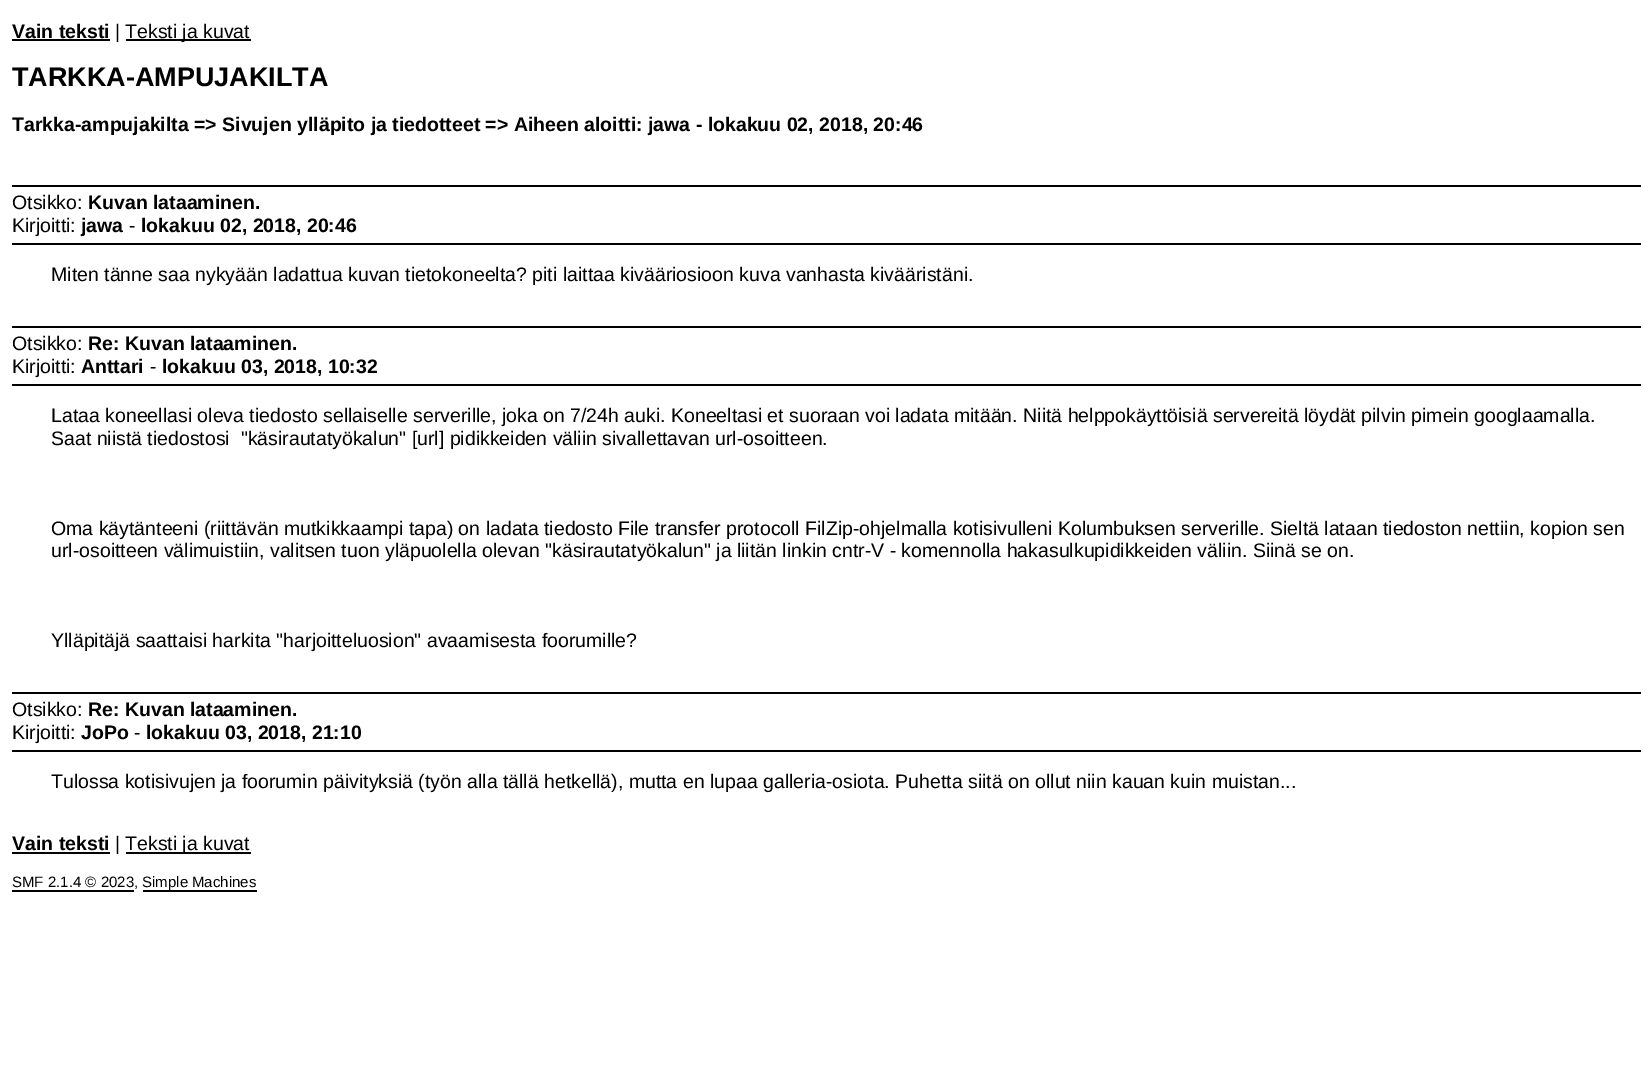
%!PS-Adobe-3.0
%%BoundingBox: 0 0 1652 1068
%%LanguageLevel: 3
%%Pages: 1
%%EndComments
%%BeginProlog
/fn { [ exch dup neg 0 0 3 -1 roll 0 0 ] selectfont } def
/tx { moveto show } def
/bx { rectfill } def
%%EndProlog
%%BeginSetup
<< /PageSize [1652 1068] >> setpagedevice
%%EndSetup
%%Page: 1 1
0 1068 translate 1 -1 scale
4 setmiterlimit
1 setgray
0 0 1652 1068 bx
/LiberationSans-Bold 19.5 fn
0 setgray
(Vain teksti) 12 38 tx
12 39 98 2 bx
/LiberationSans-Regular 19.5 fn
(|) 115 38 tx
126 39 125 2 bx
(Teksti ja kuvat) 125 38 tx
/LiberationSans-Bold 27 fn
(TARKKA-AMPUJAKILTA) 12 86 tx
/LiberationSans-Bold 19.5 fn
(Tarkka-ampujakilta => Sivujen ylläpito ja tiedotteet => Aiheen aloitti: jawa - lokakuu 02, 2018, 20:46) 12 131 tx
12 185 1629 2 bx
12 243 1629 2 bx
/LiberationSans-Regular 19.5 fn
(Otsikko:) 12 209 tx
/LiberationSans-Bold 19.5 fn
(Kuvan lataaminen.) 88 209 tx
/LiberationSans-Regular 19.5 fn
(Kirjoitti:) 12 232 tx
/LiberationSans-Bold 19.5 fn
(jawa) 81 232 tx
/LiberationSans-Regular 19.5 fn
(-) 129 232 tx
/LiberationSans-Bold 19.5 fn
(lokakuu 02, 2018, 20:46) 141 232 tx
/LiberationSans-Regular 19.5 fn
(Miten tänne saa nykyään ladattua kuvan tietokoneelta? piti laittaa kivääriosioon kuva vanhasta kivääristäni.) 51 281 tx
12 326 1629 2 bx
12 384 1629 2 bx
(Otsikko:) 12 350 tx
/LiberationSans-Bold 19.5 fn
(Re: Kuvan lataaminen.) 88 350 tx
/LiberationSans-Regular 19.5 fn
(Kirjoitti:) 12 373 tx
/LiberationSans-Bold 19.5 fn
(Anttari) 81 373 tx
/LiberationSans-Regular 19.5 fn
(-) 150 373 tx
/LiberationSans-Bold 19.5 fn
(lokakuu 03, 2018, 10:32) 162 373 tx
/LiberationSans-Regular 19.5 fn
(Lataa koneellasi oleva tiedosto sellaiselle serverille, joka on 7/24h auki. Koneeltasi et suoraan voi ladata mitään. Niitä helppokäyttöisiä servereitä löydät pilvin pimein googlaamalla.) 51 422 tx
(Saat niistä tiedostosi  "käsirautatyökalun" [url] pidikkeiden väliin sivallettavan url-osoitteen.) 51 445 tx
(Oma käytänteeni \(riittävän mutkikkaampi tapa\) on ladata tiedosto File transfer protocoll FilZip-ohjelmalla kotisivulleni Kolumbuksen serverille. Sieltä lataan tiedoston nettiin, kopion sen) 51 535 tx
(url-osoitteen välimuistiin, valitsen tuon yläpuolella olevan "käsirautatyökalun" ja liitän linkin cntr-V - komennolla hakasulkupidikkeiden väliin. Siinä se on.) 51 557 tx
(Ylläpitäjä saattaisi harkita "harjoitteluosion" avaamisesta foorumille?) 51 647 tx
12 692 1629 2 bx
12 750 1629 2 bx
(Otsikko:) 12 716 tx
/LiberationSans-Bold 19.5 fn
(Re: Kuvan lataaminen.) 88 716 tx
/LiberationSans-Regular 19.5 fn
(Kirjoitti:) 12 739 tx
/LiberationSans-Bold 19.5 fn
(JoPo) 81 739 tx
/LiberationSans-Regular 19.5 fn
(-) 134 739 tx
/LiberationSans-Bold 19.5 fn
(lokakuu 03, 2018, 21:10) 146 739 tx
/LiberationSans-Regular 19.5 fn
(Tulossa kotisivujen ja foorumin päivityksiä \(työn alla tällä hetkellä\), mutta en lupaa galleria-osiota. Puhetta siitä on ollut niin kauan kuin muistan...) 51 788 tx
/LiberationSans-Bold 19.5 fn
(Vain teksti) 12 850 tx
12 852 98 2 bx
/LiberationSans-Regular 19.5 fn
(|) 115 850 tx
126 852 125 2 bx
(Teksti ja kuvat) 125 850 tx
/LiberationSans-Regular 15 fn
(SMF 2.1.4 © 2023,) 12 887 tx
12 890 122 2 bx
143 890 114 2 bx
(Simple Machines) 142 887 tx
showpage
%%EOF
